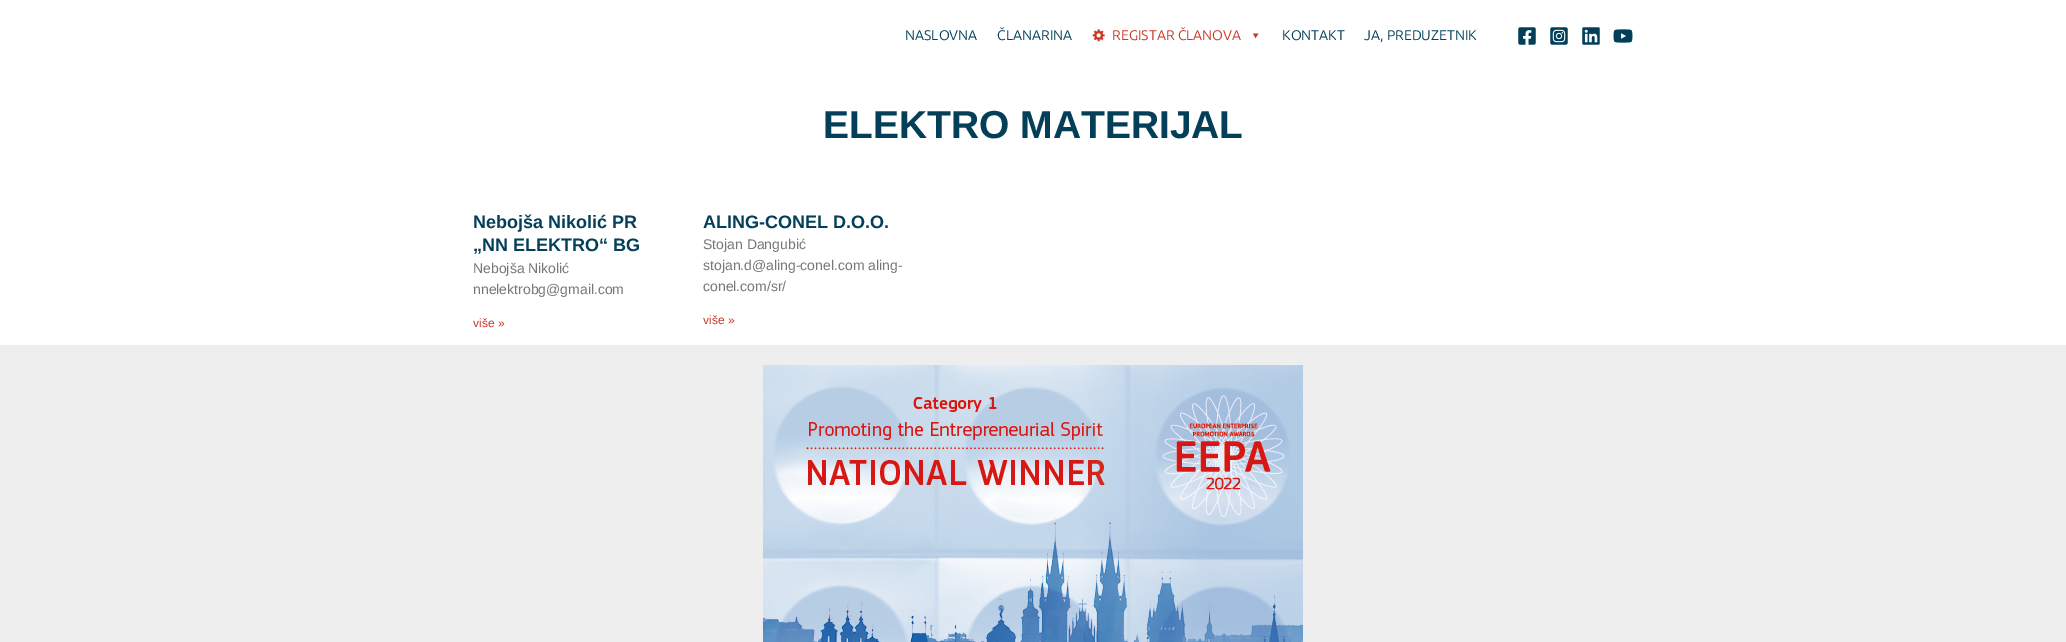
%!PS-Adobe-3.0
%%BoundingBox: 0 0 2066 642
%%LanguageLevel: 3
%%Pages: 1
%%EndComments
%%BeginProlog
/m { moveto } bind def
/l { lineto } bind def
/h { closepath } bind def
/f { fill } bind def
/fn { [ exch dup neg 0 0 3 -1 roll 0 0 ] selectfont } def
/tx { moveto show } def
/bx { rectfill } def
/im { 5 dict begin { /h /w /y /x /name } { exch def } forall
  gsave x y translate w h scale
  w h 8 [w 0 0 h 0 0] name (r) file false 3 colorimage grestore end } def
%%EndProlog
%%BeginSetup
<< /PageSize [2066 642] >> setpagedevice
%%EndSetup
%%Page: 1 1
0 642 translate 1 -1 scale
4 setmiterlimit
1 setgray
0 0 2066 642 bx
/Ubuntu-Regular 14 fn
0.012 0.247 0.349 setrgbcolor
(NASLOVNA) 905 40 tx
(ČLANARINA) 997 40 tx
(image0.raw) 1092 29 13 13 im
0.78 0.22 0.153 setrgbcolor
(REGISTAR ČLANOVA) 1112 40 tx
1258.5 33.5 m 1255.5 38 l 1253 33.5 l h f
0.012 0.247 0.349 setrgbcolor
(KONTAKT) 1282 40 tx
(JA, PREDUZETNIK) 1364 40 tx
(image1.raw) 1518 27 18 18 im
(image2.raw) 1550 27 18 18 im
(image3.raw) 1582 27 18 18 im
(image4.raw) 1613 29 20 14 im
/LiberationSans-Bold 39 fn
(ELEKTRO MATERIJAL) 823 138 tx
/LiberationSans-Bold 18 fn
(Nebojša Nikolić PR) 473 228 tx
(„NN ELEKTRO“ BG) 473 251 tx
/LiberationSans-Regular 14 fn
0.467 setgray
(Nebojša Nikolić) 473 273 tx
(nnelektrobg@gmail.com) 473 294 tx
/LiberationSans-Regular 12 fn
0.78 0.22 0.153 setrgbcolor
(više ») 473 327 tx
/LiberationSans-Bold 18 fn
0.012 0.247 0.349 setrgbcolor
(ALING-CONEL D.O.O.) 703 228 tx
/LiberationSans-Regular 14 fn
0.467 setgray
(Stojan Dangubić) 703 249 tx
(stojan.d@aling-conel.com aling-) 703 270 tx
(conel.com/sr/) 703 291 tx
/LiberationSans-Regular 12 fn
0.78 0.22 0.153 setrgbcolor
(više ») 703 324 tx
0.933 setgray
0 345 2066 297 bx
(image5.raw) 763 365 540 277 im
showpage
%%EOF
